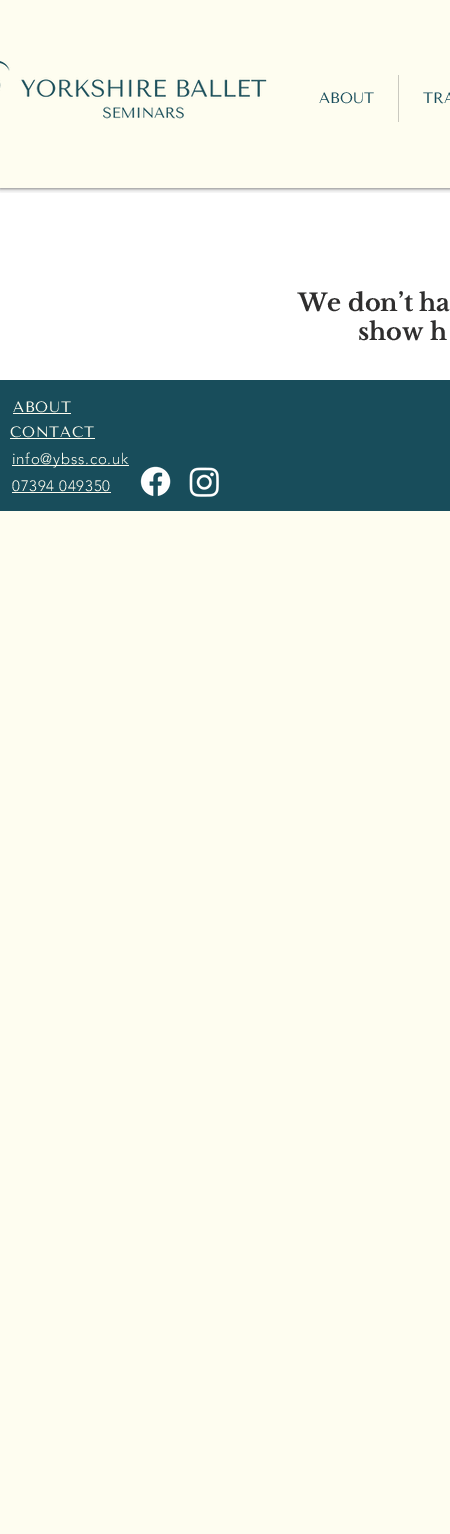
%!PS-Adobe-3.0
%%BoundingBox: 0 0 450 1534
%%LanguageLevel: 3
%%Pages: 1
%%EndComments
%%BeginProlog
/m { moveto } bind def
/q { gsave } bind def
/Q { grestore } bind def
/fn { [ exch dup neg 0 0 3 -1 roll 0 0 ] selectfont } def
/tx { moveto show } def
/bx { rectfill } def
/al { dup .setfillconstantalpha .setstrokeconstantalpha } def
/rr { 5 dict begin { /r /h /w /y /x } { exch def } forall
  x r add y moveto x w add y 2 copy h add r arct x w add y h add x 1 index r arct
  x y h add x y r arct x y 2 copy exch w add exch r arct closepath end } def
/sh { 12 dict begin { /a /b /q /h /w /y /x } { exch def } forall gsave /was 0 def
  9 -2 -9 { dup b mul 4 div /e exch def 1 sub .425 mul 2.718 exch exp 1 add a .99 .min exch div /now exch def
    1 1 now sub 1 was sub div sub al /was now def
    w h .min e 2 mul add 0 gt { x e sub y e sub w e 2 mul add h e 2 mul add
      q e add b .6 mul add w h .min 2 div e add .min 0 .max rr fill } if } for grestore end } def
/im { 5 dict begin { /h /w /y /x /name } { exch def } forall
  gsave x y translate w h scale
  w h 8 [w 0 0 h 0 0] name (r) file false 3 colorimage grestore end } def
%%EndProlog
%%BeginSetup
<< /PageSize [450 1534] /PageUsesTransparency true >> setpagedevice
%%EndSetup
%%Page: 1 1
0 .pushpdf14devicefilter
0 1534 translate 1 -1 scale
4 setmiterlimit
0.996 0.992 0.941 setrgbcolor
0 0 450 1534 bx
1 setgray
0 188 450 192 bx
q
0 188 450 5 rectclip
0 setgray
0 0 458 188 0 2.5 0.7 sh
Q
(image0.raw) 0 61 267 58 im
/TenorSans-Regular 15 fn
0.094 0.302 0.357 setrgbcolor
(ABOUT) 319 103 tx
0.792 0.788 0.753 setrgbcolor
398 75 1 47 bx
0.094 0.302 0.357 setrgbcolor
(TRA) 423 103 tx
/LibreBaskerville-Bold 24 fn
0.184 0.18 0.18 setrgbcolor
(We don’t ha) 298 311 tx
(show h) 358 340 tx
0.094 0.302 0.357 setrgbcolor
0 380 450 131 bx
/TenorSans-Regular 15 fn
0.996 0.992 0.941 setrgbcolor
13 412 m 0.75 0 (ABOUT) ashow
13 413 58 1 bx
10 437 m 0.75 0 (CONTACT) ashow
10 438 85 1 bx
12 465 117 1 bx
/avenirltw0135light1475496-Light 15 fn
12 464 m 0.75 0 (info@ybss.co.uk) ashow
12 491 m 0.75 0 (07394 049350) ashow
12 492 99 1 bx
(image1.raw) 140 466 31 30 im
(image2.raw) 189 467 30 30 im
.poppdf14devicefilter showpage
%%EOF
